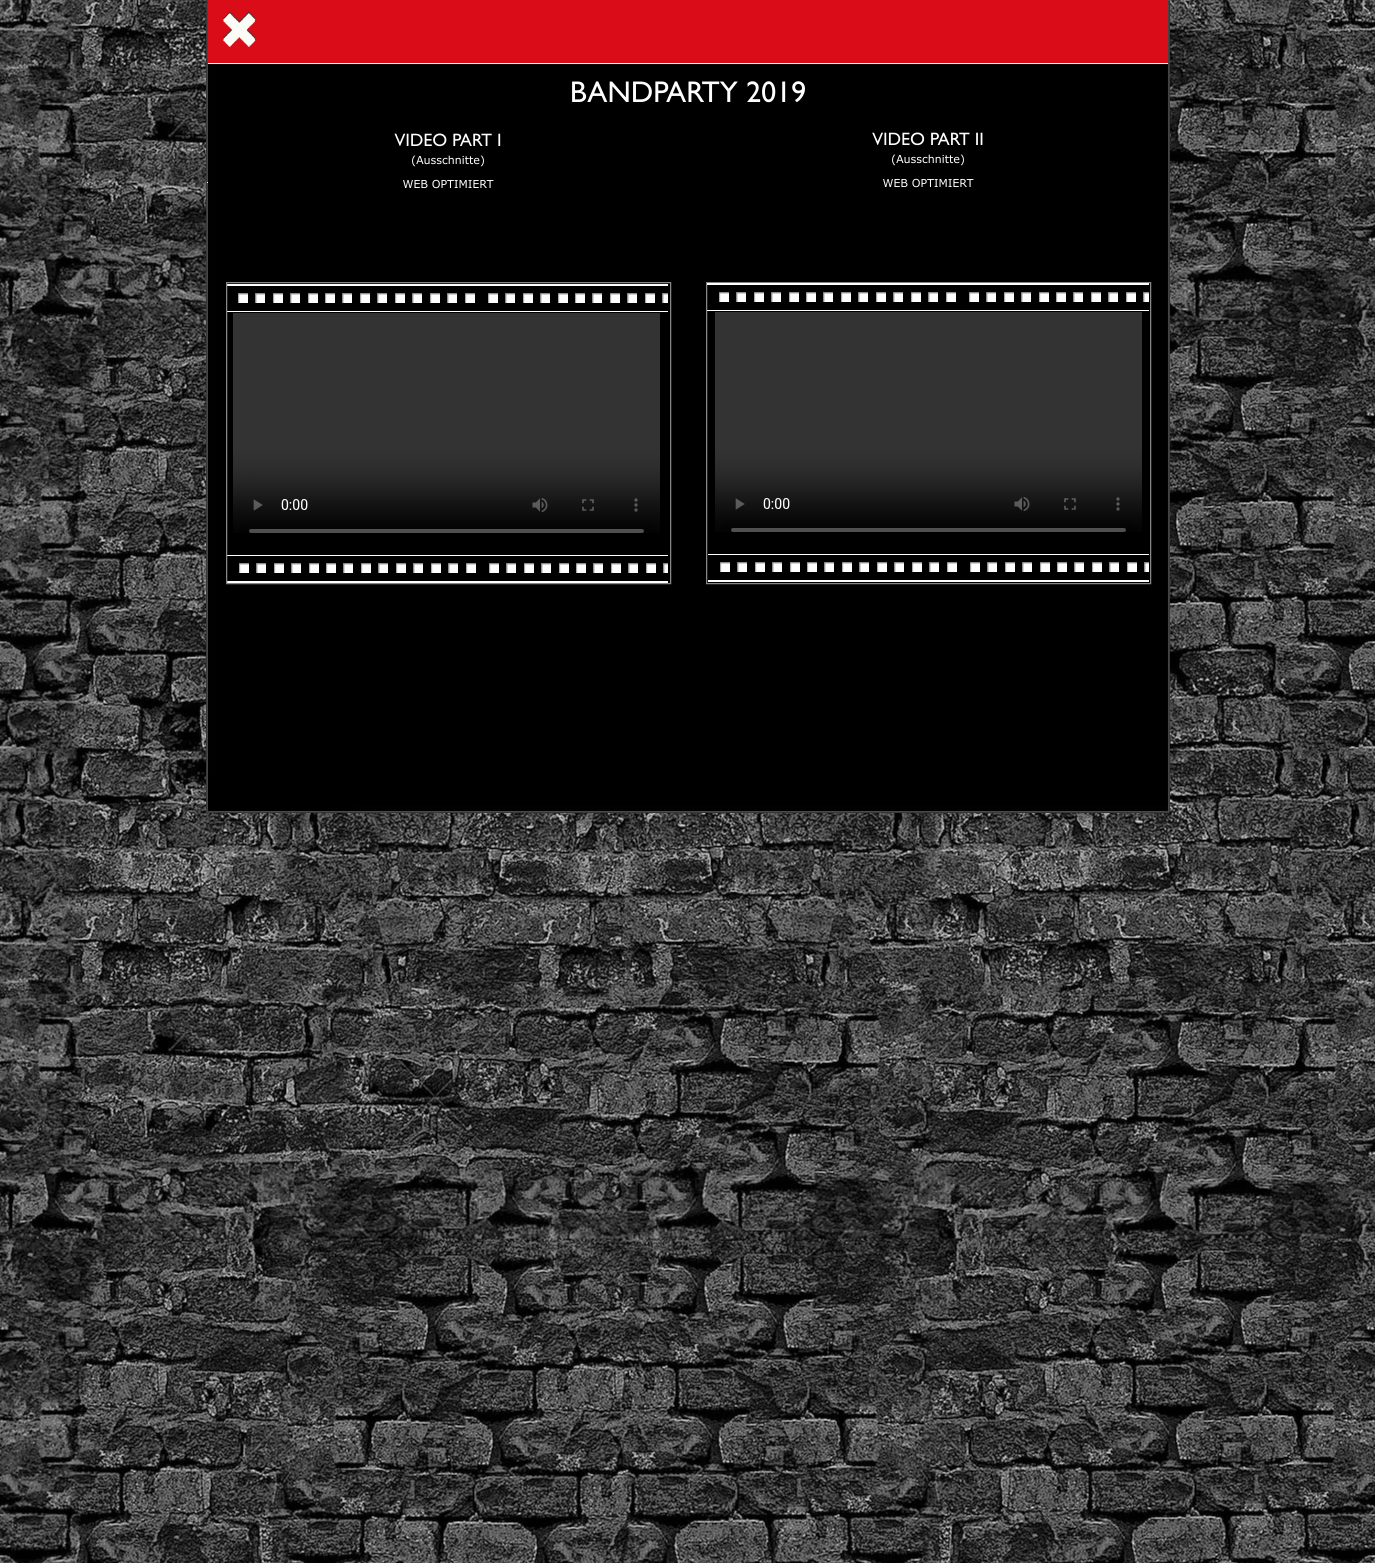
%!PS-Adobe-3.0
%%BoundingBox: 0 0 1375 1563
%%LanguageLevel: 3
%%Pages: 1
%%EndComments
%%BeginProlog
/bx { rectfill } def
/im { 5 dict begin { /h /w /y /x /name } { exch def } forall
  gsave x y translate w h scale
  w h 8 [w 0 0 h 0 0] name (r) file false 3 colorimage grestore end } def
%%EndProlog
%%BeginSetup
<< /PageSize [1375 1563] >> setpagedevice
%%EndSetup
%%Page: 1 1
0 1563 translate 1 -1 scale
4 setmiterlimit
1 setgray
0 0 1375 1563 bx
(image0.raw) 0 0 1375 1563 im
(image1.raw) 206 0 964 813 im
0.855 0.047 0.094 setrgbcolor
208 0 960 63 bx
1 setgray
208 63 960 1 bx
(image2.raw) 223 11 33 36 im
0 setgray
208 64 3 713 bx
(image3.raw) 572 81 233 22 im
1 setgray
207 182 1 1 bx
(image4.raw) 331 133 357 56 im
(image5.raw) 688 132 480 56 im
(image6.raw) 227 293 441 18 im
226 284 442 2 bx
226 311 442 1 bx
(image9.raw) 228 563 440 18 im
227 555 441 1 bx
227 581 441 2 bx
0.525 setgray
226.5 282.5 444 301 rectstroke
706.5 282.5 444 301 rectstroke
(image6.raw) 708 292 441 18 im
1 setgray
707 283 442 2 bx
707 310 442 1 bx
(image7.raw) 233 313 427 220 im
(image8.raw) 715 312 427 220 im
(image9.raw) 709 562 440 18 im
708 554 441 1 bx
708 580 441 2 bx
0 setgray
208 777 145 33 bx
showpage
%%EOF
